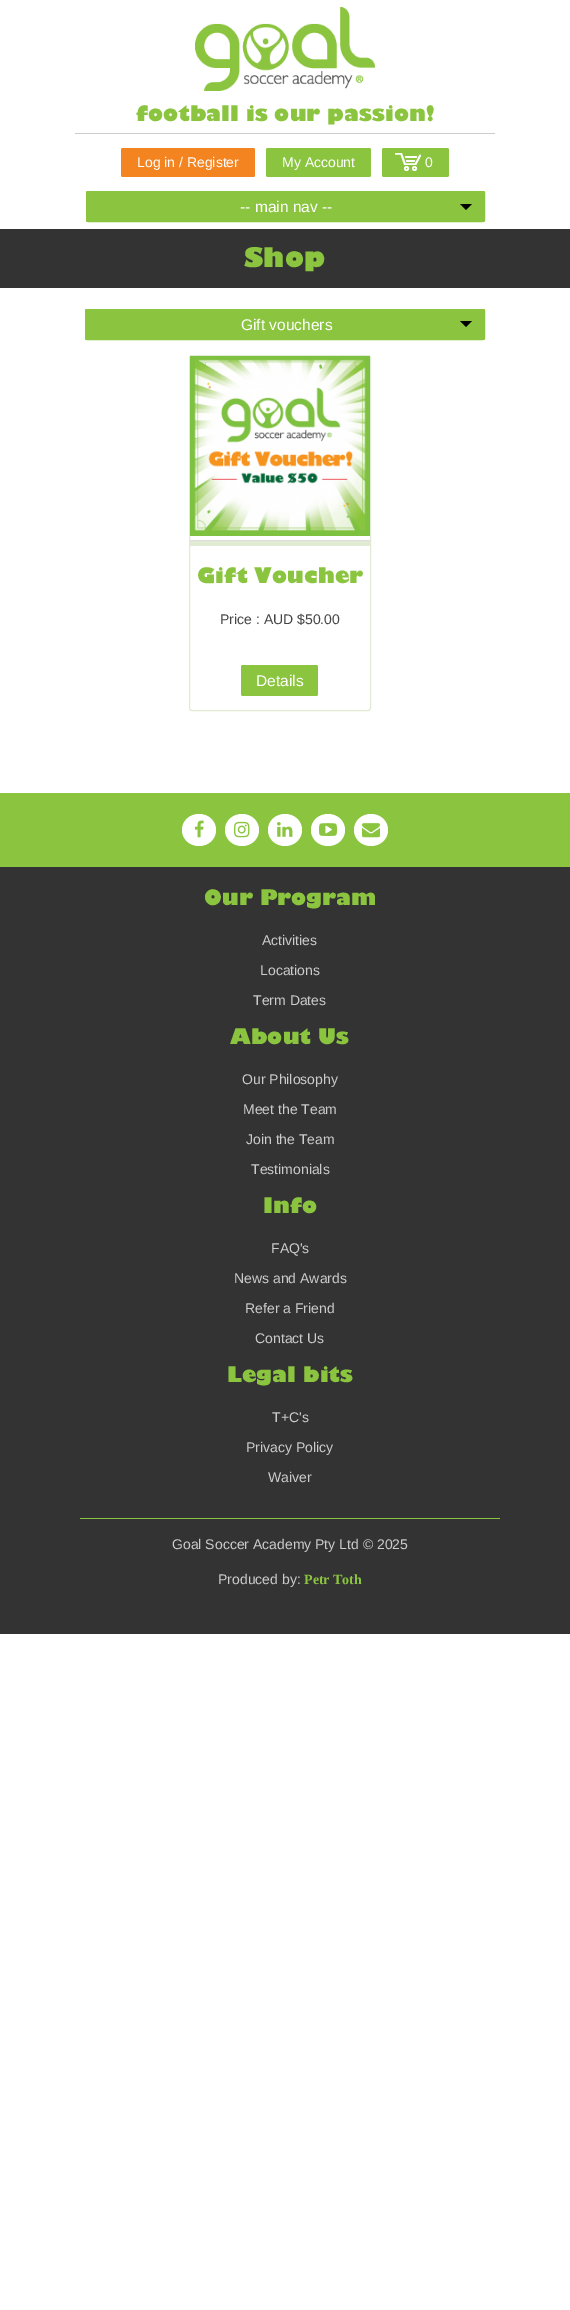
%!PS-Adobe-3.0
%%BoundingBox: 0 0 570 2310
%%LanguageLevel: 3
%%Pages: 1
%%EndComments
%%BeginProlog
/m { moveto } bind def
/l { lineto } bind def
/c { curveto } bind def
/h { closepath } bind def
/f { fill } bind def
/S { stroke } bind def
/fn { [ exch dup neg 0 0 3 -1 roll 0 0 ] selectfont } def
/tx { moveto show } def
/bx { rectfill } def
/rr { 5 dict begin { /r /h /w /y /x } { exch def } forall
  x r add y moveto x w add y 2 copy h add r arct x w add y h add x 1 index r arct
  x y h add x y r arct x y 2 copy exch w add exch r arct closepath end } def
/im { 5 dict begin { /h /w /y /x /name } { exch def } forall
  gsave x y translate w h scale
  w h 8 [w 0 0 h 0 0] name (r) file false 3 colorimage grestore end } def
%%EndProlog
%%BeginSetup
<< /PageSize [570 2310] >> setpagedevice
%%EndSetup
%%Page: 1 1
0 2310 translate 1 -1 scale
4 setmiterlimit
1 setgray
0 0 570 2310 bx
(image0.raw) 195 7 180 84 im
/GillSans-ExtraBold 21 fn
0.545 0.773 0.247 setrgbcolor
(football is our passion!) 136 121 tx
0.8 setgray
75 133 420 1 bx
0.957 0.518 0.125 setrgbcolor
121 148 134 29 2 rr f
/LiberationSans-Regular 14 fn
1 setgray
(Log in / Register) 137 167 tx
0.545 0.773 0.247 setrgbcolor
266 148 105 29 2 rr f
1 setgray
(My Account) 282 167 tx
0.545 0.773 0.247 setrgbcolor
382 148 67 29 2 rr f
(image1.raw) 395 153 26 18 im
1 setgray
(0) 425 167 tx
0.545 0.773 0.247 setrgbcolor
86 191 399 31 2 rr f
0 setgray
472 204 m 466 210 l 460 204 l h f
0.545 0.773 0.247 setrgbcolor
86.5 191.5 398 30 1.5 rr S
/LiberationSans-Regular 15.5 fn
1 setgray
(-- main nav --) 240 212 tx
0.2 setgray
0 229 570 59 bx
/GillSans-ExtraBold 26.5 fn
0.545 0.773 0.247 setrgbcolor
(Shop) 244 267 tx
85 309 400 31 2 rr f
0 setgray
472 321 m 466 327 l 460 321 l h f
0.545 0.773 0.247 setrgbcolor
85.5 309.5 399 30 1.5 rr S
/LiberationSans-Regular 15.5 fn
1 setgray
(Gift vouchers) 241 330 tx
0.882 0.918 0.827 setrgbcolor
189.5 355.5 181 355 2.5 rr S
(image2.raw) 190 356 180 180 im
0.867 setgray
190 540 180 1 bx
0.882 0.918 0.827 setrgbcolor
190 541 180 5 bx
/GillSans-ExtraBold 21 fn
0.545 0.773 0.247 setrgbcolor
(Gift Voucher) 197 583 tx
/LiberationSans-Regular 14 fn
0.267 setgray
(Price : AUD $50.00) 220 624 tx
0.545 0.773 0.247 setrgbcolor
241 665 77 31 2 rr f
/LiberationSans-Regular 15.5 fn
1 setgray
(Details) 256 686 tx
0.545 0.773 0.247 setrgbcolor
0 793 570 74 bx
1 setgray
199 814 m 208.5 814 216 821 216 830 c 216 839 208.5 846 199 846 c 189.5 846 182 839 182 830 c 182 821 189.5 814 199 814 c h f
(image3.raw) 194 820 10 18 im
242 814 m 251.5 814 259 821 259 830 c 259 839 251.5 846 242 846 c 232.5 846 225 839 225 830 c 225 821 232.5 814 242 814 c h f
(image4.raw) 234 821 16 17 im
285 814 m 294.5 814 302 821 302 830 c 302 839 294.5 846 285 846 c 275.5 846 268 839 268 830 c 268 821 275.5 814 285 814 c h f
(image5.raw) 277 822 16 15 im
328 814 m 337.5 814 345 821 345 830 c 345 839 337.5 846 328 846 c 318.5 846 311 839 311 830 c 311 821 318.5 814 328 814 c h f
(image6.raw) 319 823 18 13 im
371 814 m 380.5 814 388 821 388 830 c 388 839 380.5 846 371 846 c 361.5 846 354 839 354 830 c 354 821 361.5 814 371 814 c h f
(image7.raw) 362 823 18 15 im
0.2 setgray
0 867 570 767 bx
/GillSans-ExtraBold 21 fn
0.545 0.773 0.247 setrgbcolor
(Our Program) 204 905 tx
/LiberationSans-Regular 14 fn
0.8 setgray
(Activities) 262 945 tx
(Locations) 260 975 tx
(Term Dates) 253 1005 tx
/GillSans-ExtraBold 21 fn
0.545 0.773 0.247 setrgbcolor
(About Us) 230 1044 tx
/LiberationSans-Regular 14 fn
0.8 setgray
(Our Philosophy) 242 1084 tx
(Meet the Team) 243 1114 tx
(Join the Team) 246 1144 tx
(Testimonials) 251 1174 tx
/GillSans-ExtraBold 21 fn
0.545 0.773 0.247 setrgbcolor
(Info) 263 1213 tx
/LiberationSans-Regular 14 fn
0.8 setgray
(FAQ's) 271 1253 tx
(News and Awards) 234 1283 tx
(Refer a Friend) 245 1313 tx
(Contact Us) 255 1343 tx
/GillSans-ExtraBold 21 fn
0.545 0.773 0.247 setrgbcolor
(Legal bits) 227 1382 tx
/LiberationSans-Regular 14 fn
0.8 setgray
(T+C's) 272 1422 tx
(Privacy Policy) 246 1452 tx
(Waiver) 268 1482 tx
0.545 0.773 0.247 setrgbcolor
80 1518 420 1 bx
0.8 setgray
(Goal Soccer Academy Pty Ltd © 2025) 172 1549 tx
(Produced by:) 218 1584 tx
/LiberationSerif-Bold 14 fn
0.545 0.773 0.247 setrgbcolor
(Petr Toth) 304 1584 tx
showpage
%%EOF
